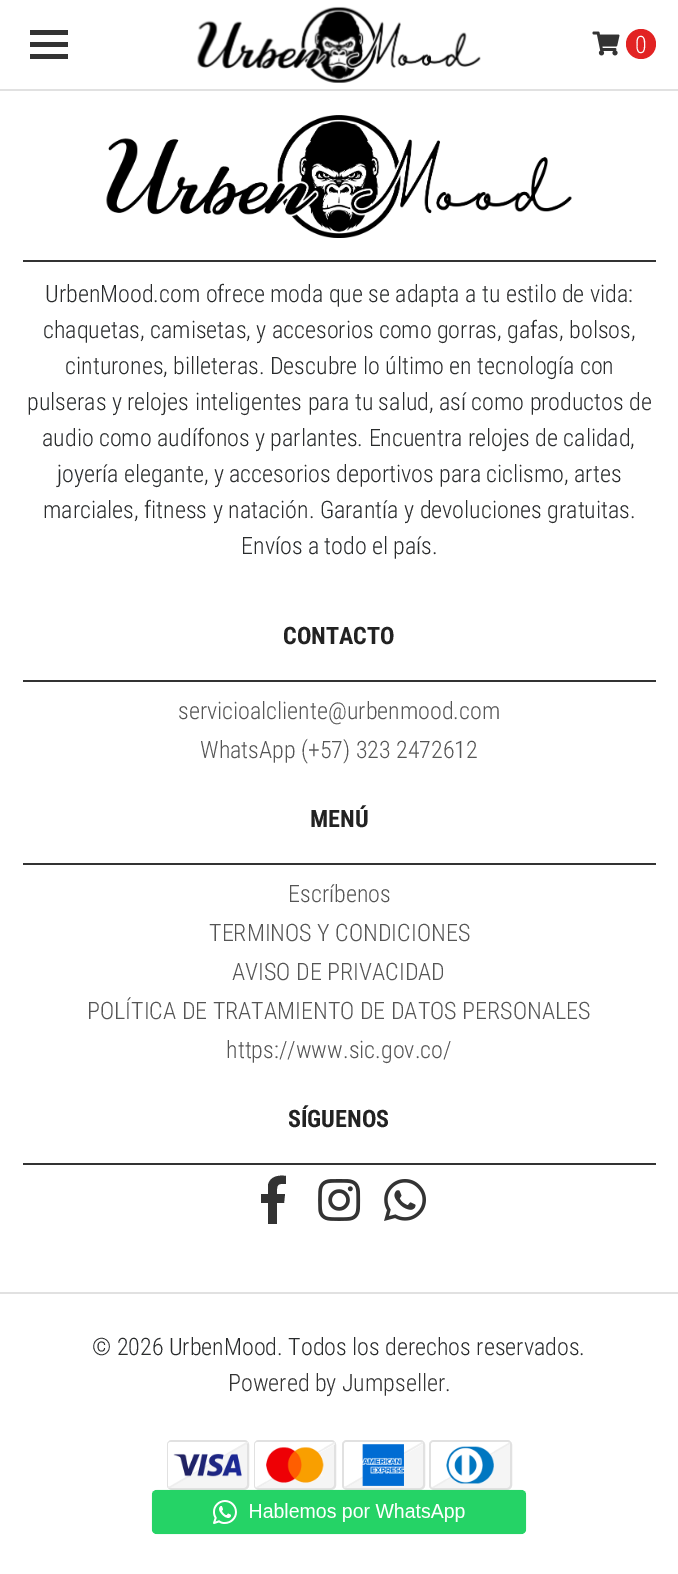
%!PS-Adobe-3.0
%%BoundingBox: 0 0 678 1574
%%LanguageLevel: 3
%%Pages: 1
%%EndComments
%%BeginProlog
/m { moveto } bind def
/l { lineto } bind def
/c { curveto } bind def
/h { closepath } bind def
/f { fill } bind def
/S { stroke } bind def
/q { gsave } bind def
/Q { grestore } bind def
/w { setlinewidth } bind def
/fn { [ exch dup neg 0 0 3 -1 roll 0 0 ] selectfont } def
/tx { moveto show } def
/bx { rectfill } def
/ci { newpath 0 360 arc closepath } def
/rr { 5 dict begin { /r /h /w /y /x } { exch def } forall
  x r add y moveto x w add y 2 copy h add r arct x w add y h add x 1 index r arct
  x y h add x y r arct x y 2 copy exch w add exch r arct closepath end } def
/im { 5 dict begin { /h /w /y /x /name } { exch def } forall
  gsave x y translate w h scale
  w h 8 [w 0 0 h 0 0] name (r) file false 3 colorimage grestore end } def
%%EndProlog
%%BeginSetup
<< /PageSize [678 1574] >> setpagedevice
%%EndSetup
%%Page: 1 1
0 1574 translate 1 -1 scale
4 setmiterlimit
1 setgray
0 0 678 1574 bx
0.2 setgray
30 30 38 5 bx
30 42 38 5 bx
30 54 38 5 bx
0.882 setgray
0 89 678 2 bx
(image0.raw) 197 6 284 77 im
(image1.raw) 592 31 28 25 im
0.886 0.137 0.137 setrgbcolor
641 44 15 ci f
/RobotoCondensed-Light 24 fn
1 setgray
(0) 635 53 tx
(image2.raw) 106 115 466 123 im
0.2 setgray
23 260 633 2 bx
0.161 0.169 0.173 setrgbcolor
(UrbenMood.com ofrece moda que se adapta a tu estilo de vida:) 45 302 tx
(chaquetas, camisetas, y accesorios como gorras, gafas, bolsos,) 43 338 tx
(cinturones, billeteras. Descubre lo último en tecnología con) 65 374 tx
(pulseras y relojes inteligentes para tu salud, así como productos de) 27 410 tx
(audio como audífonos y parlantes. Encuentra relojes de calidad,) 42 446 tx
(joyería elegante, y accesorios deportivos para ciclismo, artes) 57 482 tx
(marciales, fitness y natación. Garantía y devoluciones gratuitas.) 43 518 tx
(Envíos a todo el país.) 241 554 tx
0.2 setgray
23 680 633 2 bx
/RobotoCondensed-Bold 24 fn
0.133 setgray
(CONTACTO) 283 644 tx
/RobotoCondensed-Light 24 fn
0.333 setgray
(servicioalcliente@urbenmood.com) 178 719 tx
(WhatsApp \(+57\) 323 2472612) 200 758 tx
0.2 setgray
23 863 633 2 bx
/RobotoCondensed-Bold 24 fn
0.133 setgray
(MENÚ) 310 827 tx
/RobotoCondensed-Light 24 fn
0.333 setgray
(Escríbenos) 288 902 tx
(TERMINOS Y CONDICIONES) 209 941 tx
(AVISO DE PRIVACIDAD) 232 980 tx
(POLÍTICA DE TRATAMIENTO DE DATOS PERSONALES) 87 1019 tx
(https://www.sic.gov.co/) 226 1058 tx
0.2 setgray
23 1163 633 2 bx
/RobotoCondensed-Bold 24 fn
0.133 setgray
(SÍGUENOS) 288 1127 tx
0.2 setgray
281 1184 m 276 1184 277 1190 277 1194 c 285 1194 l 284 1203 l 277 1203 l 277 1224 l 268 1224 l 268 1203 l 261 1203 l 261 1194 l 268 1194 l 268 1185 l 270 1176 279 1175 286 1176 c 286 1184 l h f
(image3.raw) 318 1179 43 42 im
(image4.raw) 384 1179 42 42 im
0.882 setgray
0 1292 678 2 bx
/RobotoCondensed-Light 24 fn
0.161 0.169 0.173 setrgbcolor
(© 2026 UrbenMood. Todos los derechos reservados.) 92 1355 tx
0.2 setgray
(Powered by Jumpseller) 228 1391 tx
0.161 0.169 0.173 setrgbcolor
(.) 445 1391 tx
0.961 setgray
168 1441 80 48 4 rr q f Q
0.882 setgray
2 w
S
1 setgray
171 1442 m 245 1442 l 247 1443 l 170 1488 l 169 1487 168 1486 168 1485 c 168 1445 l 168 1443 169 1442 171 1442 c h f
q
168 1442 80 46 3 rr clip newpath
0.933 setgray
1.5 w
194.5 1301.5 m 269 1430 l 140 1504.5 l 66 1376 l h S
Q
(image5.raw) 173 1453 69 24 im
0.961 setgray
255 1441 80 48 4 rr q f Q
0.882 setgray
S
1 setgray
258 1442 m 332 1442 l 335 1444 l 258 1488 l 256 1488 255 1486 255 1485 c 255 1445 l 255 1443 256 1442 258 1442 c h f
q
255 1442 80 46 3 rr clip newpath
0.933 setgray
1.5 w
282.5 1301.5 m 356.5 1430 l 228 1504.5 l 154 1376 l h S
Q
(image6.raw) 266 1447 58 36 im
0.961 setgray
343 1441 81 48 4 rr q f Q
0.882 setgray
S
1 setgray
347 1442 m 420 1442 l 423 1444 l 346 1488 l 345 1487 344 1486 344 1485 c 344 1445 l 344 1443 345 1442 347 1442 c h f
q
344 1442 79 46 3 rr clip newpath
0.933 setgray
1.5 w
370.5 1301.5 m 444.5 1430 l 316 1504.5 l 242 1376 l h S
Q
(image7.raw) 362 1444 42 42 im
0.961 setgray
430 1441 81 48 4 rr q f Q
0.882 setgray
S
1 setgray
434 1442 m 507 1442 l 508 1442 509 1443 510 1444 c 434 1488 l 432 1488 431 1486 431 1485 c 431 1445 l 431 1443 432 1442 434 1442 c h f
q
431 1442 79 46 3 rr clip newpath
0.933 setgray
1.5 w
458.5 1301.5 m 532.5 1430 l 404 1504.5 l 329.5 1376 l h S
Q
(image8.raw) 446 1446 48 38 im
(image9.raw) 151 1489 376 46 im
showpage
%%EOF
